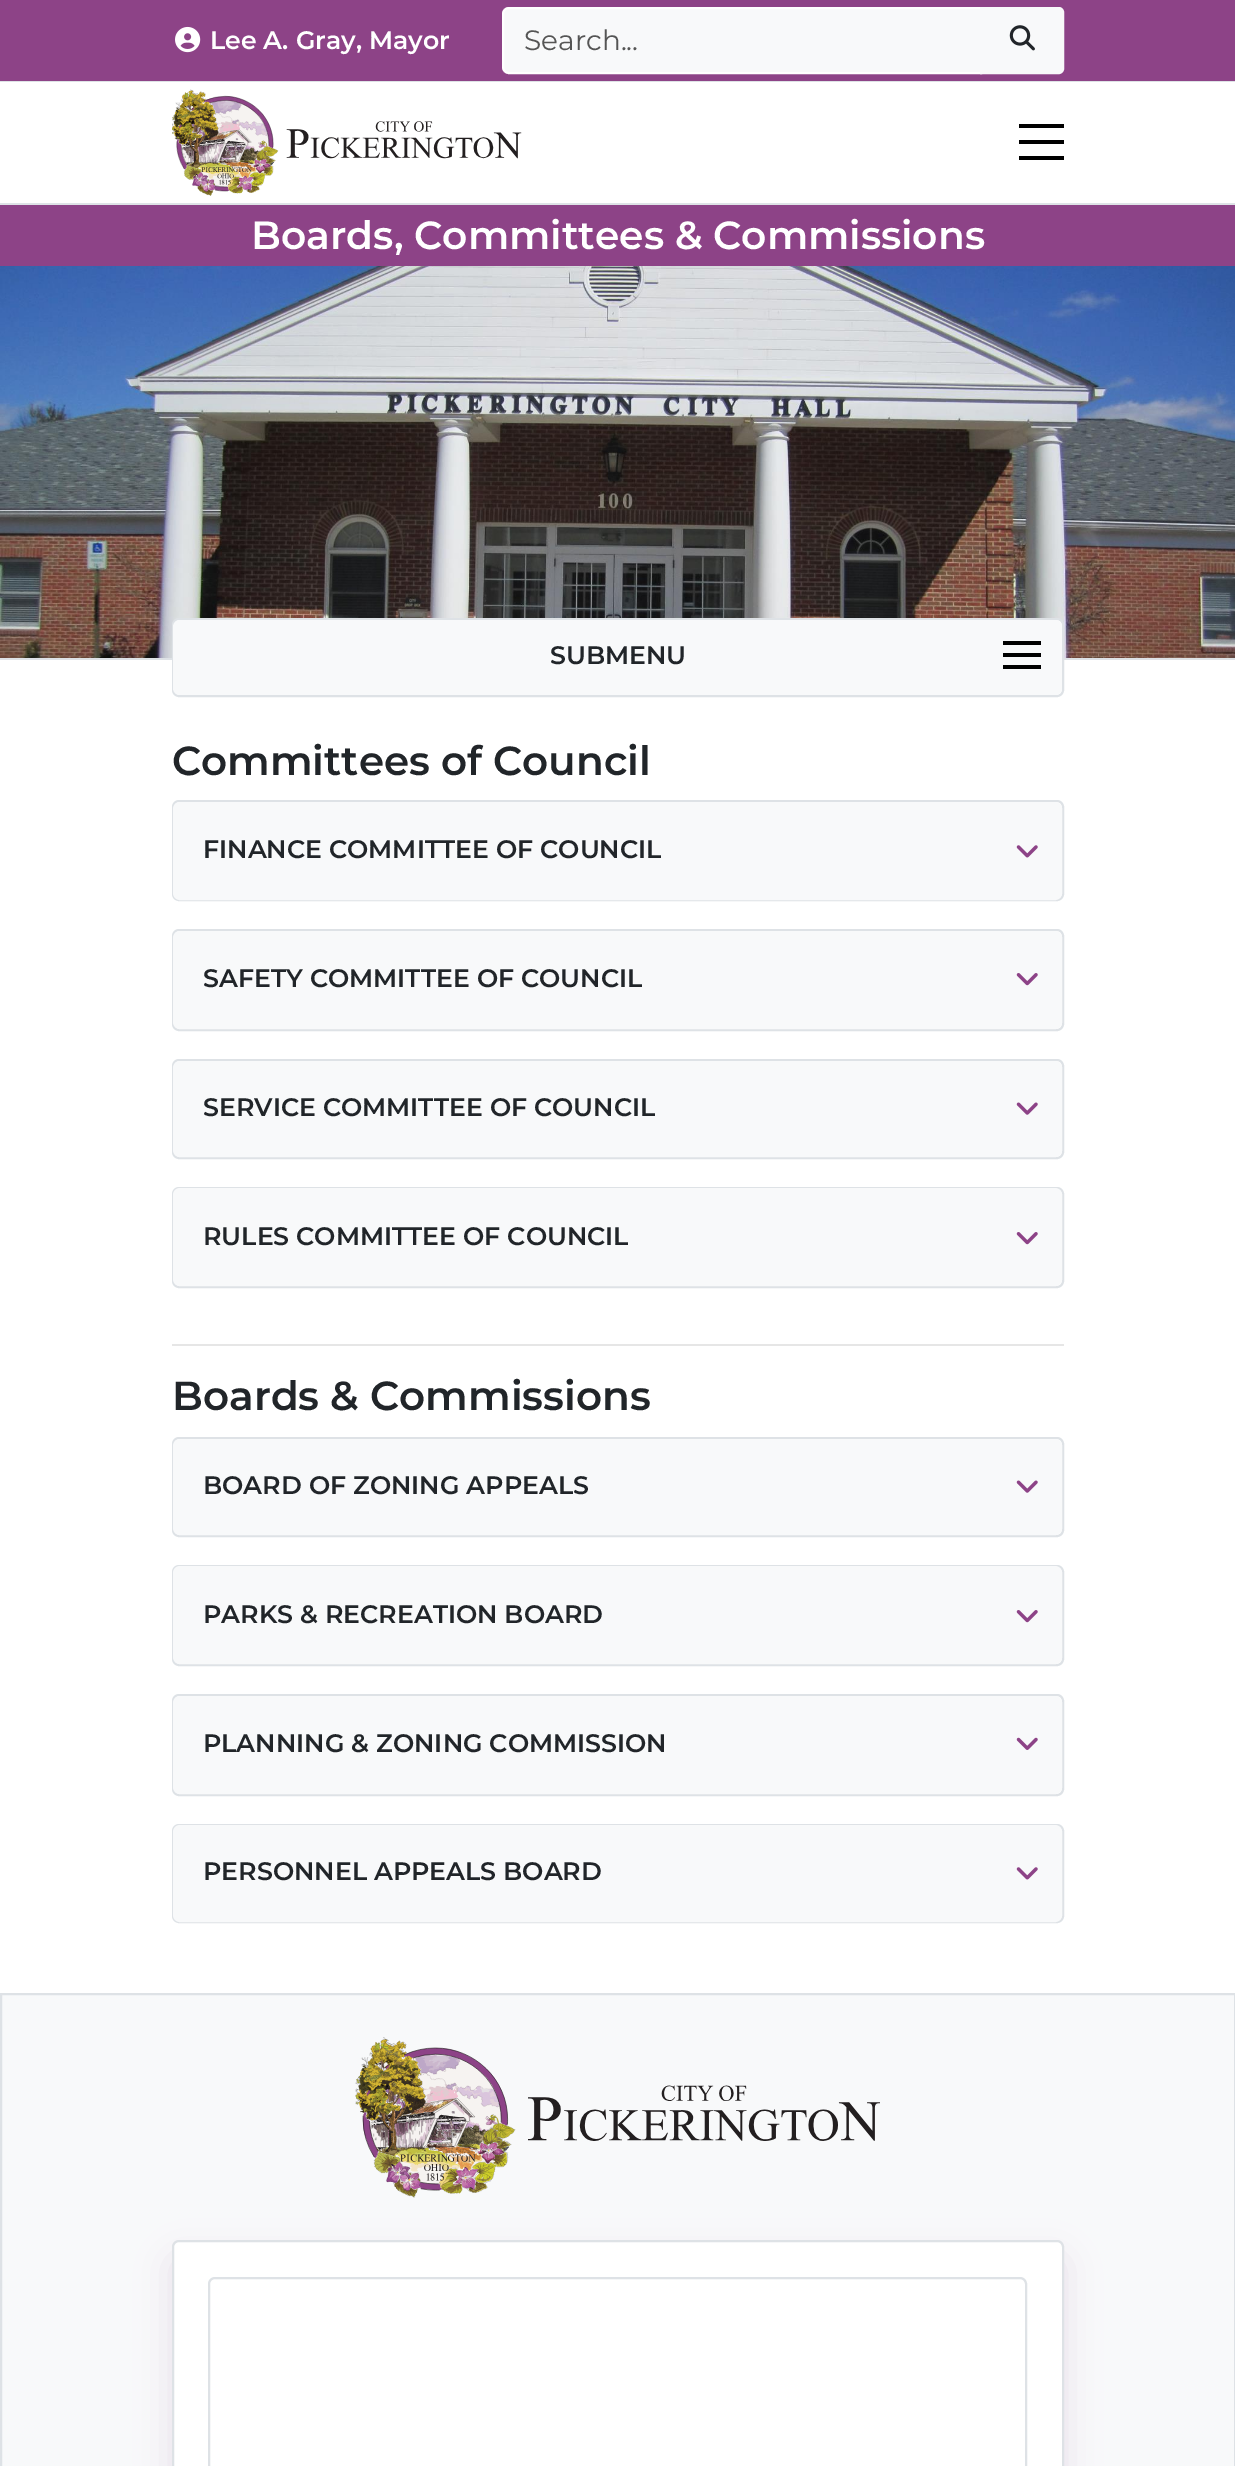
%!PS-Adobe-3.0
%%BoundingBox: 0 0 1235 2466
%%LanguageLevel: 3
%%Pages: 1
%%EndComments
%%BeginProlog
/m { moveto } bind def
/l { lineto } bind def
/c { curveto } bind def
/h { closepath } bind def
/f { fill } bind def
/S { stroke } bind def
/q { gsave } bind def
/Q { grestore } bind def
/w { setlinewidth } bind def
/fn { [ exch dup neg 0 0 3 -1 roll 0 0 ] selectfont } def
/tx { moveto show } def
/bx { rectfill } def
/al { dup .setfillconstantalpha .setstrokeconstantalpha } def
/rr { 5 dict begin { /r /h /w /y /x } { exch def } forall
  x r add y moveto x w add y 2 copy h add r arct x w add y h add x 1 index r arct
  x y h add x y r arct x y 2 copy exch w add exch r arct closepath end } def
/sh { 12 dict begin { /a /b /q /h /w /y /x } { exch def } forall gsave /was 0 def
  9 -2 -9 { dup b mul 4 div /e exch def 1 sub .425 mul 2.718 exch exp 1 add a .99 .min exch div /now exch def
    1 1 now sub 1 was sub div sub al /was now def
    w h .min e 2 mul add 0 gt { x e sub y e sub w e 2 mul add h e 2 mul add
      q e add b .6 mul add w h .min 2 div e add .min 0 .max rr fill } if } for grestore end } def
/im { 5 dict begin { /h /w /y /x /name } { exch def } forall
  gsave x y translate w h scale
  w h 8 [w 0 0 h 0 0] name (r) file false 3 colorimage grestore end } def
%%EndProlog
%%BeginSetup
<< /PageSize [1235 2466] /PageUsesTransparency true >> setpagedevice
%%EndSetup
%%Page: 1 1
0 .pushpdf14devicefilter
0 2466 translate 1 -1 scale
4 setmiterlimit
1 setgray
0 0 1235 2466 bx
0.553 0.263 0.529 setrgbcolor
0 0 1235 81 bx
0.871 0.886 0.902 setrgbcolor
0 81 1235 1 bx
(image0.raw) 175 26 26 27 im
/Montserrat-SemiBold 25.25 fn
1 setgray
(Lee A. Gray, Mayor) 210 49 tx
0.973 0.976 0.98 setrgbcolor
509 8 m 981 8 l 981 73 l 509 73 l 505.5 73 503 70.5 503 67 c 503 14 l 503 10.5 505.5 8 509 8 c h q f Q
1 setgray
2 w
S
/Montserrat-Regular 28 fn
0.333 setgray
(Search...) 524 50 tx
0.973 0.976 0.98 setrgbcolor
981 8 m 1059 8 l 1061 8 1063 10 1063 12 c 1063 69 l 1063 71 1061 73 1059 73 c 981 73 l h q f Q
S
(image1.raw) 1009 25 26 26 im
0.871 0.886 0.902 setrgbcolor
0 203 1235 2 bx
(image2.raw) 172 89 350 107 im
0 setgray
1019 124 45 4 bx
1019 140 45 4 bx
1019 156 45 4 bx
0.553 0.263 0.529 setrgbcolor
0 205 1235 61 bx
/Montserrat-SemiBold 39.25 fn
1 setgray
(Boards, Committees & Commissions) 251 249 tx
(image3.raw) 0 266 1235 392 im
0.871 0.886 0.902 setrgbcolor
0 658 1235 2 bx
1 setgray
173 619 890 77 6 rr q f Q
0.871 0.886 0.902 setrgbcolor
S
0.973 0.976 0.98 setrgbcolor
173 620 889 75 7 rr f
/Montserrat-SemiBold 25.25 fn
0.129 0.145 0.161 setrgbcolor
(SUBMENU) 550 664 tx
0 setgray
1003 641 38 4 bx
1003 653 38 4 bx
1003 665 38 4 bx
/Montserrat-SemiBold 40.5 fn
0.129 0.145 0.161 setrgbcolor
(Committees of Council) 172 775 tx
0.871 0.886 0.902 setrgbcolor
173 801 890 99 6 rr S
0.973 0.976 0.98 setrgbcolor
174 803 887 96 6 rr q f Q
S
/Montserrat-SemiBold 25.25 fn
0.129 0.145 0.161 setrgbcolor
(FINANCE COMMITTEE OF COUNCIL) 203 858 tx
(image4.raw) 1016 845 22 13 im
0.871 0.886 0.902 setrgbcolor
173 930 890 100 6 rr S
0.973 0.976 0.98 setrgbcolor
174 932 887 96 6 rr q f Q
S
0.129 0.145 0.161 setrgbcolor
(SAFETY COMMITTEE OF COUNCIL) 203 987 tx
(image5.raw) 1016 973 22 13 im
0.871 0.886 0.902 setrgbcolor
173 1060 890 98 6 rr S
0.973 0.976 0.98 setrgbcolor
174 1062 887 94 6 rr q f Q
S
0.129 0.145 0.161 setrgbcolor
(SERVICE COMMITTEE OF COUNCIL) 203 1116 tx
(image6.raw) 1016 1102 22 13 im
0.871 0.886 0.902 setrgbcolor
173 1188 890 99 6 rr S
0.973 0.976 0.98 setrgbcolor
174 1189 887 96 6 rr q f Q
S
0.129 0.145 0.161 setrgbcolor
(RULES COMMITTEE OF COUNCIL) 203 1245 tx
(image5.raw) 1016 1232 22 13 im
0.902 setgray
172 1344 892 2 bx
/Montserrat-SemiBold 40.5 fn
0.129 0.145 0.161 setrgbcolor
(Boards & Commissions) 172 1410 tx
0.871 0.886 0.902 setrgbcolor
173 1438 890 98 6 rr S
0.973 0.976 0.98 setrgbcolor
174 1440 887 94 6 rr q f Q
S
/Montserrat-SemiBold 25.25 fn
0.129 0.145 0.161 setrgbcolor
(BOARD OF ZONING APPEALS) 203 1494 tx
(image6.raw) 1016 1480 22 13 im
0.871 0.886 0.902 setrgbcolor
173 1566 890 99 6 rr S
0.973 0.976 0.98 setrgbcolor
174 1567 887 96 6 rr q f Q
S
0.129 0.145 0.161 setrgbcolor
(PARKS & RECREATION BOARD) 203 1623 tx
(image5.raw) 1016 1610 22 13 im
0.871 0.886 0.902 setrgbcolor
173 1695 890 100 6 rr S
0.973 0.976 0.98 setrgbcolor
174 1697 887 96 6 rr q f Q
S
0.129 0.145 0.161 setrgbcolor
(PLANNING & ZONING COMMISSION) 203 1752 tx
(image7.raw) 1016 1737 22 13 im
0.871 0.886 0.902 setrgbcolor
173 1825 890 97 6 rr S
0.973 0.976 0.98 setrgbcolor
174 1826 887 95 6 rr q f Q
S
0.129 0.145 0.161 setrgbcolor
(PERSONNEL APPEALS BOARD) 203 1880 tx
(image4.raw) 1016 1867 22 13 im
0.973 0.976 0.98 setrgbcolor
1 1994 m 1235 1994 l 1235 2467 l 1 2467 l h q f Q
0.871 0.886 0.902 setrgbcolor
S
(image8.raw) 355 2037 525 161 im
0.545 0.267 0.533 setrgbcolor
172 2258 892 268 7 17.5 0.15 sh
1 setgray
173 2241 890 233 6 rr q f Q
0.871 0.886 0.902 setrgbcolor
S
209 2278 817 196 6 rr S
.poppdf14devicefilter showpage
%%EOF
